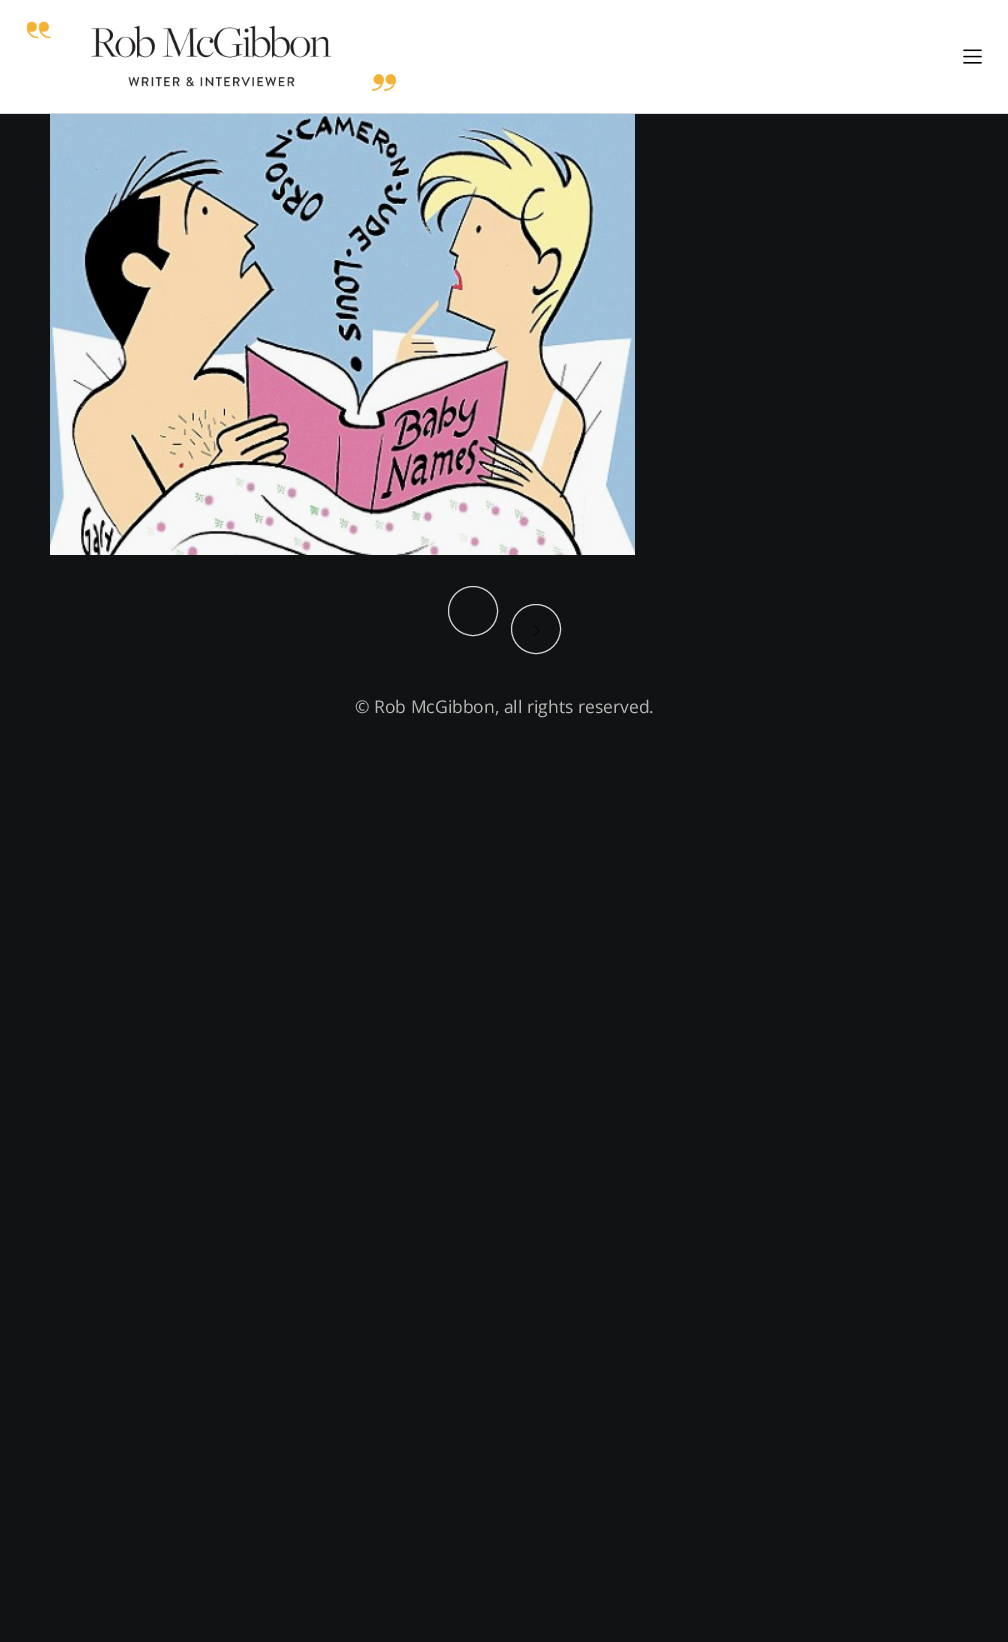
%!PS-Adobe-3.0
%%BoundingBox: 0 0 1008 1642
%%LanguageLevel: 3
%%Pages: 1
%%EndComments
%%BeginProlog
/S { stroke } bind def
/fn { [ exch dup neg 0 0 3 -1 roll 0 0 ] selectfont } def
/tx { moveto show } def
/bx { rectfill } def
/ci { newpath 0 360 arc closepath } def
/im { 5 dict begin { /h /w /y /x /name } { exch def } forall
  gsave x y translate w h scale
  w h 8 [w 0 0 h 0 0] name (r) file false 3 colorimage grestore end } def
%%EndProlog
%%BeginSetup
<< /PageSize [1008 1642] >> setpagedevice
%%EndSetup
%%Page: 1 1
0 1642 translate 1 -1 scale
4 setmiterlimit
0.067 0.071 0.075 setrgbcolor
0 0 1008 1642 bx
1 setgray
0 0 1008 113 bx
0.847 setgray
0 113 1008 1 bx
(image0.raw) 26 21 370 70 im
(image1.raw) 963 49 19 15 im
(image2.raw) 50 114 585 441 im
473 611 24.5 ci S
536 629 24.5 ci S
(image3.raw) 533 625 7 11 im
/OpenSans-Regular 17.5 fn
0.722 0.722 0.725 setrgbcolor
(© Rob McGibbon, all rights reserved.) 355 713 tx
showpage
%%EOF
